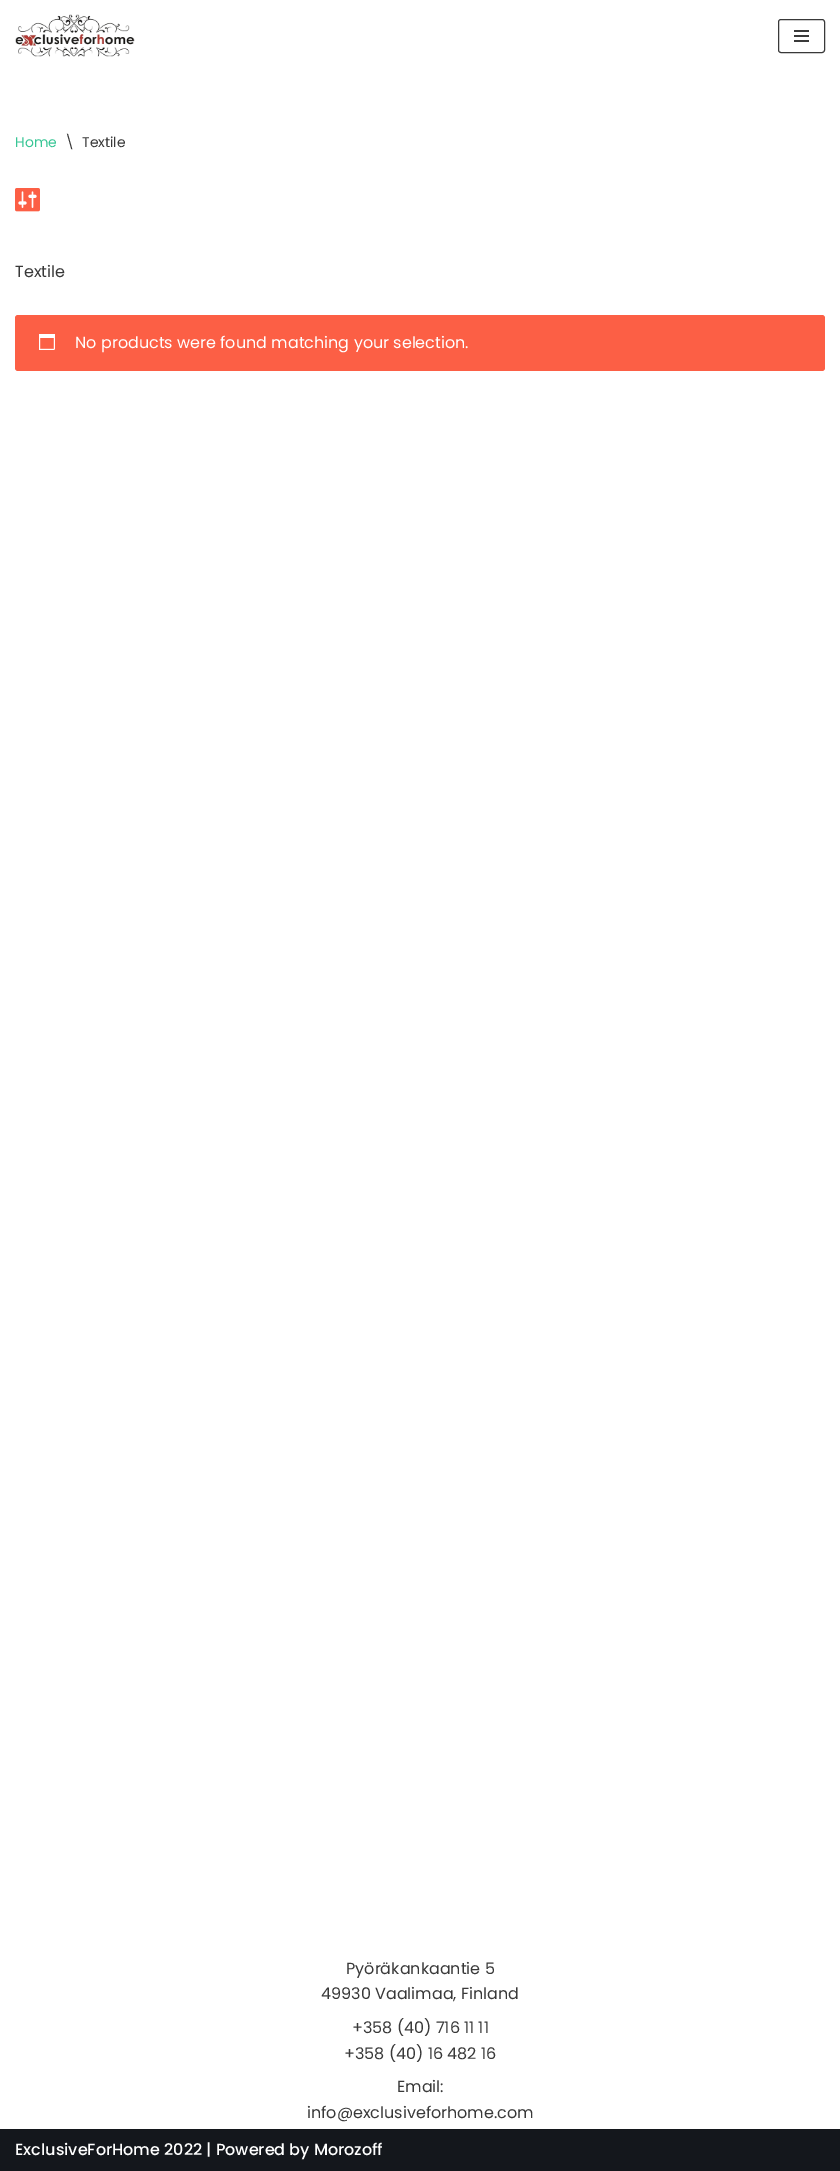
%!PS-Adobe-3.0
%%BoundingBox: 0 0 840 2171
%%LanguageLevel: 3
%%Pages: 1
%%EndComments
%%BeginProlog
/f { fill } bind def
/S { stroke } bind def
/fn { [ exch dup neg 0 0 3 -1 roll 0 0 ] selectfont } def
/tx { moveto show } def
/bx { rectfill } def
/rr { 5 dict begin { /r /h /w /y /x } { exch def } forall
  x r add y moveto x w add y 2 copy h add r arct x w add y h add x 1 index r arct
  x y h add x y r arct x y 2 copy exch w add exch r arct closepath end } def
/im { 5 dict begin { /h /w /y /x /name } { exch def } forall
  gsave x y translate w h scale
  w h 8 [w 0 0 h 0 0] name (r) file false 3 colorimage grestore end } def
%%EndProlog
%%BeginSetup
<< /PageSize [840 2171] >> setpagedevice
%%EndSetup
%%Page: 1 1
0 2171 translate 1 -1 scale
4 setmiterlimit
1 setgray
0 0 840 2171 bx
(image0.raw) 15 14 120 43 im
0.224 setgray
778.5 19.5 46 33 2.5 rr S
794 30 15 2 bx
794 35 15 2 bx
794 40 15 2 bx
/Poppins-Regular 14 fn
0.22 0.776 0.584 setrgbcolor
(Home) 15 147 tx
0.224 setgray
(\\) 65 147 tx
(Textile) 82 147 tx
(image1.raw) 15 188 25 24 im
/Poppins-Regular 16 fn
(Textile) 15 277 tx
0.988 0.373 0.271 setrgbcolor
15 315 810 56 3 rr f
(image2.raw) 39 334 16 16 im
1 setgray
(No products were found matching your selection.) 75 348 tx
0.224 setgray
(Pyöräkankaantie 5) 346 1974 tx
(49930 Vaalimaa, Finland) 321 1999 tx
(+358 \(40\) 716 11 11) 352 2033 tx
(+358 \(40\) 16 482 16) 344 2059 tx
(Email:) 397 2092 tx
(info@exclusiveforhome.com) 307 2118 tx
0.078 0.09 0.11 setrgbcolor
0 2129 840 42 bx
/Poppins-Medium 16 fn
1 setgray
(ExclusiveForHome 2022 | Powered by Morozoff) 15 2155 tx
showpage
%%EOF
